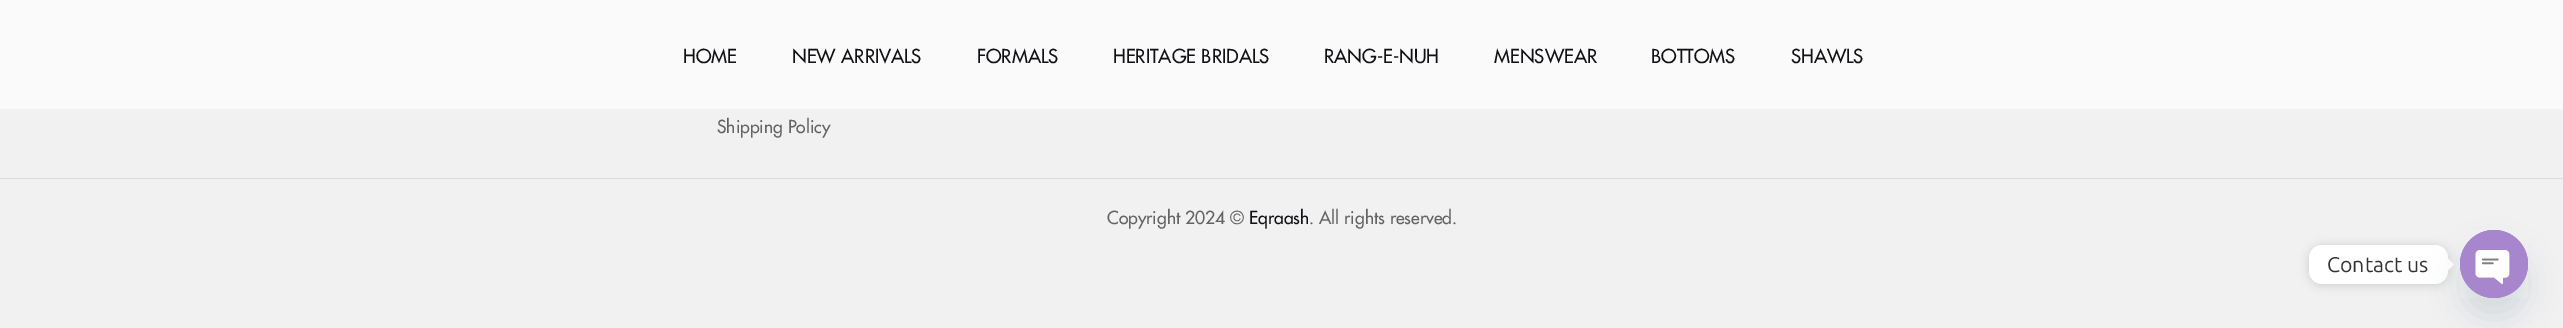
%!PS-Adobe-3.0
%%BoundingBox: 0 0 2563 328
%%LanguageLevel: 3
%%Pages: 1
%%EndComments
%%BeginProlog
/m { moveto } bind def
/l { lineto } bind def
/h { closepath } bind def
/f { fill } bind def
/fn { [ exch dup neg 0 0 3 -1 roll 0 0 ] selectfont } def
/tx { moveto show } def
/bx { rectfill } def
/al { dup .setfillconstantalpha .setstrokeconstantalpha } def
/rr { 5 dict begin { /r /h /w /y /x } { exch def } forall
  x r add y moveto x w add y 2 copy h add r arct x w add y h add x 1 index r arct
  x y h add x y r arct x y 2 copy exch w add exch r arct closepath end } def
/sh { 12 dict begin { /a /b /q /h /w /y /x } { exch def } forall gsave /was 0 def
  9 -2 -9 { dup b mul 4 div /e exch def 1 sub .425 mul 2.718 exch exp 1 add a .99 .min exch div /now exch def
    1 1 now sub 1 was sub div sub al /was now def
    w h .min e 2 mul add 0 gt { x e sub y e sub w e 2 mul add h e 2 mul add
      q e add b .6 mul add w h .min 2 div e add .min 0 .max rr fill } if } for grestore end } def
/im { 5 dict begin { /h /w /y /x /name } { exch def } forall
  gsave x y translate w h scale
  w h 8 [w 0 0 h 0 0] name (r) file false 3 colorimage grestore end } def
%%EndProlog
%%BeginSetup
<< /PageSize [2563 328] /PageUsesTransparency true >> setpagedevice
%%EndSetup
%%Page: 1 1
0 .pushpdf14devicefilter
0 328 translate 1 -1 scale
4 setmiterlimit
0.945 setgray
0 0 2563 328 bx
0.98 setgray
0 0 2563 109 bx
/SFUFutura-Regular 18.75 fn
0.071 0.071 0.086 setrgbcolor
(HOME) 683 63 tx
(NEW ARRIVALS) 792 63 tx
(FORMALS) 977 63 tx
(HERITAGE BRIDALS) 1113 63 tx
(RANG-E-NUH) 1324 63 tx
(MENSWEAR) 1494 63 tx
(BOTTOMS) 1651 63 tx
(SHAWLS) 1791 63 tx
0.863 setgray
0 178 2563 1 bx
/SFUFutura-Regular 17.5 fn
0.392 setgray
(Shipping Policy) 717 133 tx
(Copyright 2024 ©) 1107 224 tx
0.071 0.071 0.086 setrgbcolor
(Eqraash) 1249 224 tx
0.392 setgray
(. All rights reserved.) 1309 224 tx
0 setgray
2309 246 139 39 13 5 0.15 sh
1 setgray
2309 245 139 39 13 rr f
/Ubuntu-Regular 21.25 fn
0.2 setgray
(Contact us) 2327 272 tx
1 setgray
2447.5 270.5 m 2447.5 258 l 2454 264.5 l h f
0.286 0.408 0.494 setrgbcolor
2460 250 68 68 34 15 0.16 sh
(image0.raw) 2460 230 68 68 im
.poppdf14devicefilter showpage
%%EOF
